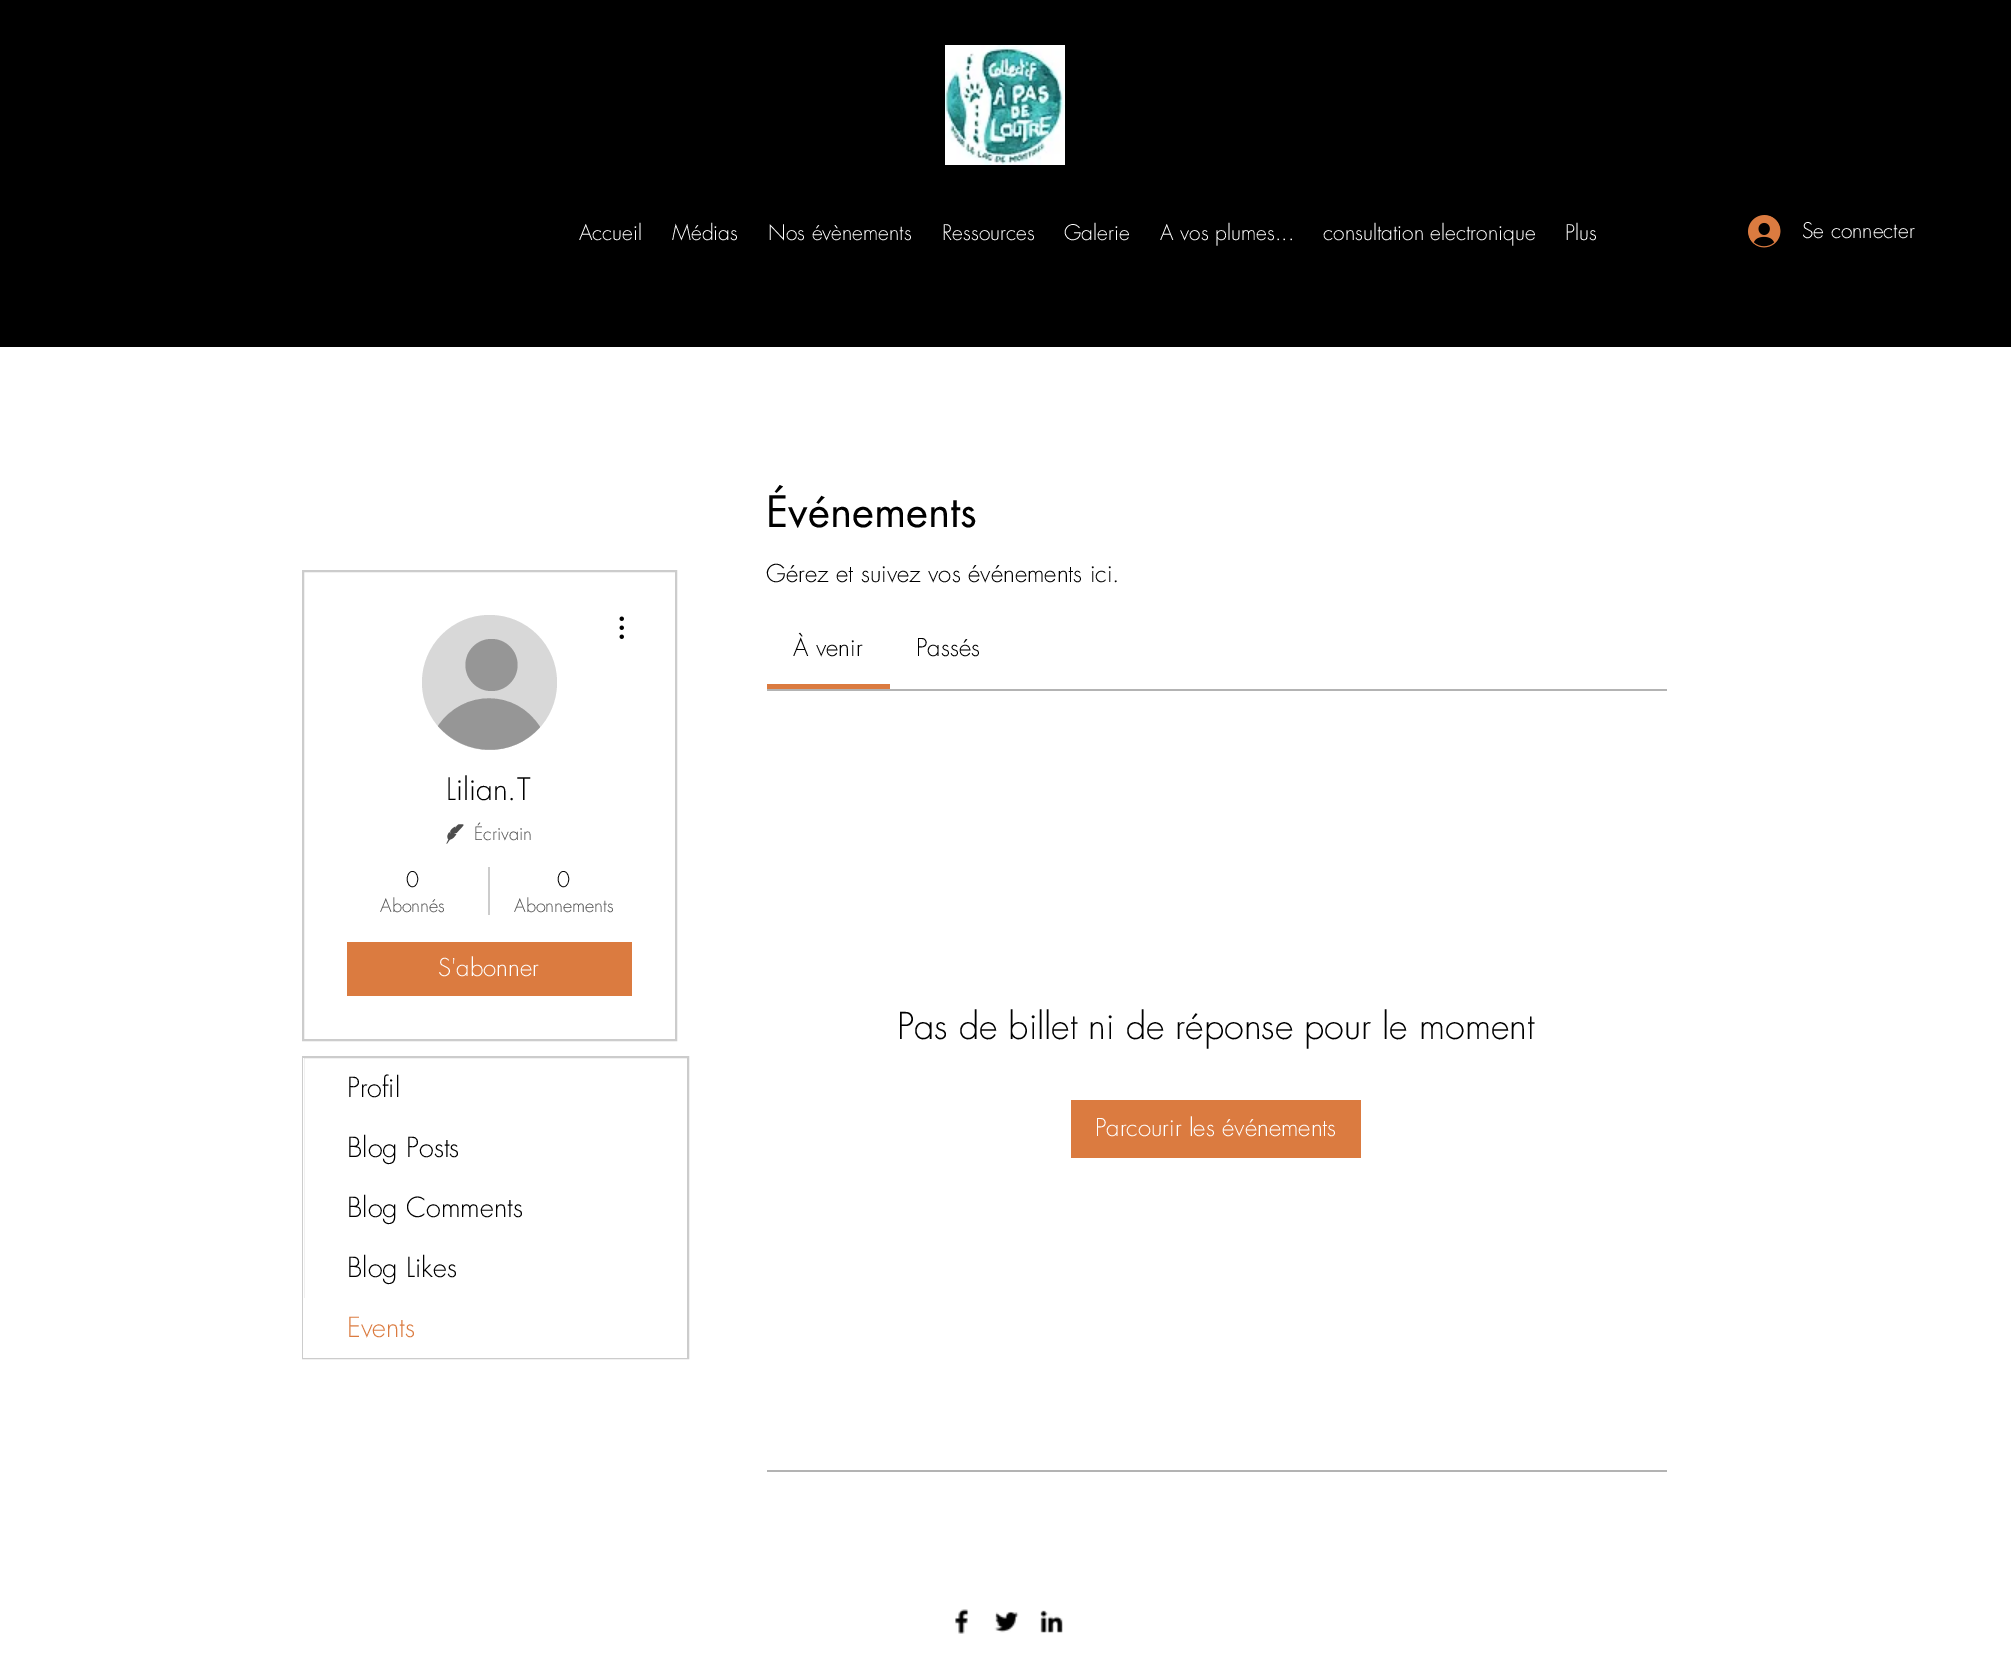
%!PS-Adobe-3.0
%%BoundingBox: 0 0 2011 1677
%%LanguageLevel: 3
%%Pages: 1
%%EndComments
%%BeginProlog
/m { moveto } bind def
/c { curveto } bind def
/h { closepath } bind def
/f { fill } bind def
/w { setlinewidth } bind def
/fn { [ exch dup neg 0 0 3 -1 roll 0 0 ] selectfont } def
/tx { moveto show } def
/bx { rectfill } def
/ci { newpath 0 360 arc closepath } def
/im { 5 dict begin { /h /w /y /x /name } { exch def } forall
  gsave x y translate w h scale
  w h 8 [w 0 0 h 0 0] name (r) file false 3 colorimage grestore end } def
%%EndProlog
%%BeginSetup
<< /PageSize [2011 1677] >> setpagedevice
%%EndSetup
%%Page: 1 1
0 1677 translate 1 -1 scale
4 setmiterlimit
1 setgray
0 0 2011 1677 bx
0 setgray
0 0 2011 347 bx
(image0.raw) 945 45 120 120 im
/futura-Light 21 fn
1 setgray
(Accueil) 579 240 tx
(Médias) 672 240 tx
(Nos évènements) 768 240 tx
(Ressources) 942 240 tx
(Galerie) 1064 240 tx
(A vos plumes...) 1160 240 tx
(consultation electronique) 1323 240 tx
(Plus) 1565 240 tx
(image1.raw) 1748 215 33 33 im
(Se connecter) 1802 238 tx
0.8 setgray
2 w
303 571 373 469 rectstroke
0.847 setgray
489.5 682.5 67.5 ci f
0.588 setgray
491.5 665 26 ci f
540 727 m 513 758 465 757 438 726 c 463 689 516 689 540 727 c h f
(image2.raw) 619 616 5 23 im
/futura-Light 30 fn
0 setgray
(Lilian.T) 446 800 tx
(image3.raw) 446 824 18 20 im
/futura-Light 18 fn
0.302 setgray
(Écrivain) 474 840 tx
/futura-Light 21 fn
0 setgray
(0) 406 887 tx
/futura-Light 18 fn
0.302 setgray
(Abonnés) 380 912 tx
0.8 setgray
488 867 2 48 bx
/futura-Light 21 fn
0 setgray
(0) 557 887 tx
/futura-Light 18 fn
0.302 setgray
(Abonnements) 514 912 tx
0.859 0.482 0.251 setrgbcolor
347 942 285 54 bx
/futura-Light 24 fn
1 setgray
(S'abonner) 438 976 tx
0.8 setgray
303 1057 385 301 rectstroke
1 setgray
303 1058 1 240 bx
/futura-Light 27 fn
0 setgray
(Profil) 347 1097 tx
(Blog Posts) 347 1157 tx
(Blog Comments) 347 1217 tx
(Blog Likes) 347 1277 tx
1 setgray
303 1298 384 60 bx
0.859 0.482 0.251 setrgbcolor
(Events) 347 1337 tx
/futura-Regular 42 fn
0 setgray
(Événements) 766 527 tx
/futura-Light 24 fn
(Gérez et suivez vos événements ici.) 766 582 tx
0.859 0.482 0.251 setrgbcolor
767 684 123 5 bx
0 setgray
(À venir) 793 656 tx
(Passés) 916 656 tx
0.702 setgray
767 689 900 2 bx
/futura-Light 36 fn
0 setgray
(Pas de billet ni de réponse pour le moment) 897 1039 tx
0.859 0.482 0.251 setrgbcolor
1071 1100 290 58 bx
/futura-Light 24 fn
1 setgray
(Parcourir les événements) 1095 1136 tx
0.702 setgray
767 1470 900 2 bx
(image4.raw) 955 1609 14 25 im
(image5.raw) 994 1611 25 22 im
(image6.raw) 1040 1610 23 23 im
showpage
%%EOF
